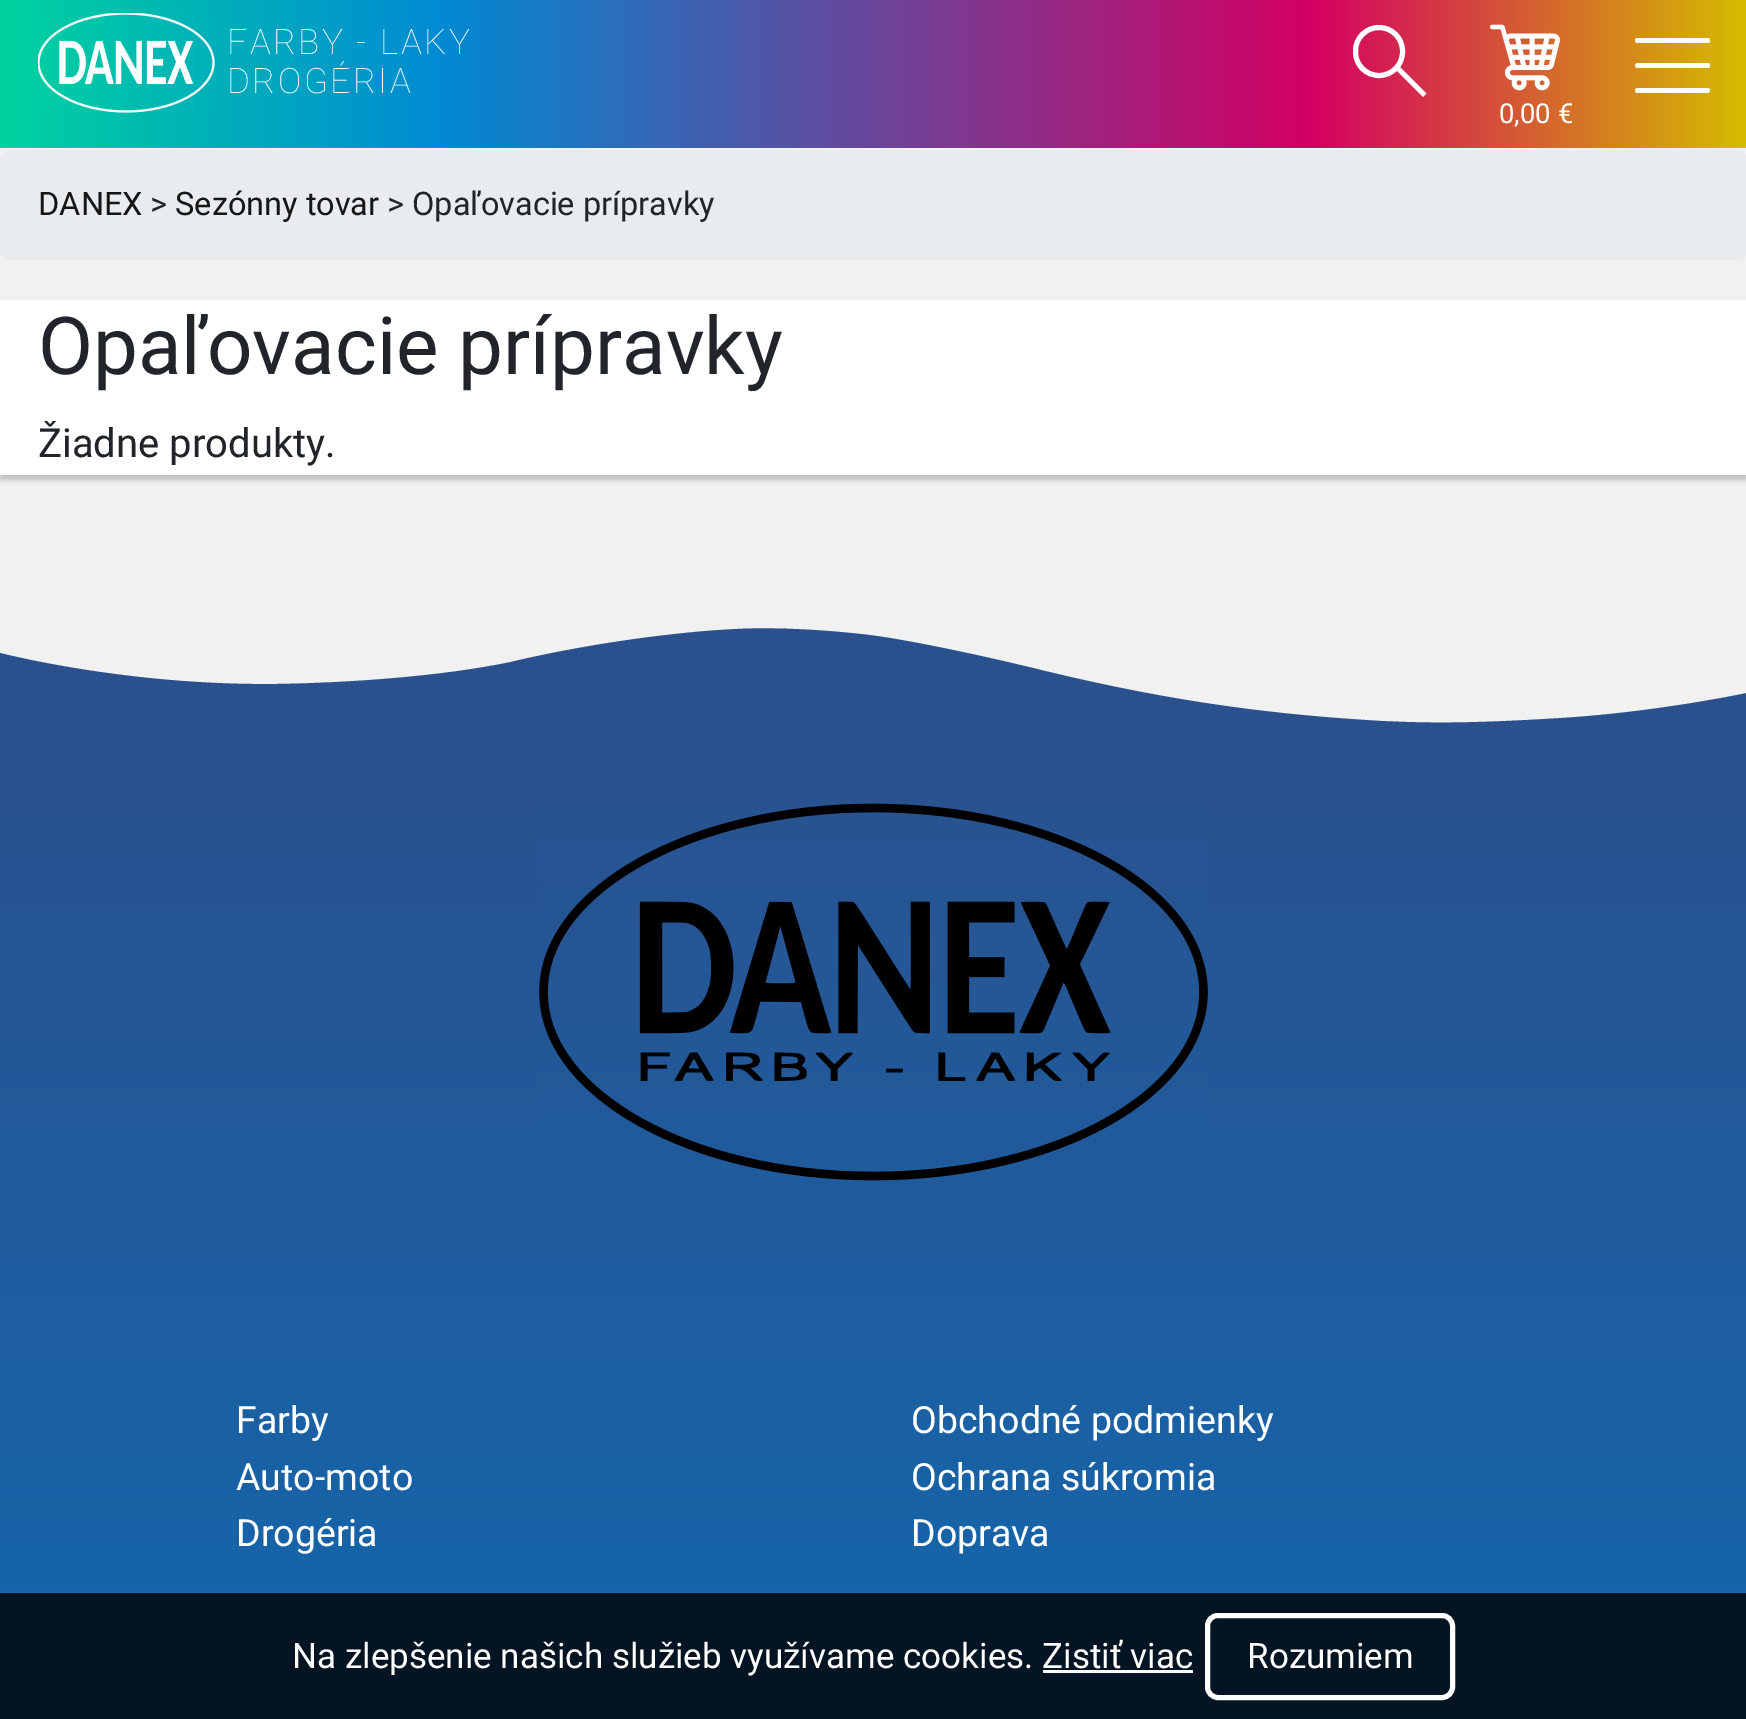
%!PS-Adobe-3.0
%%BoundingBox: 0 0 1746 1719
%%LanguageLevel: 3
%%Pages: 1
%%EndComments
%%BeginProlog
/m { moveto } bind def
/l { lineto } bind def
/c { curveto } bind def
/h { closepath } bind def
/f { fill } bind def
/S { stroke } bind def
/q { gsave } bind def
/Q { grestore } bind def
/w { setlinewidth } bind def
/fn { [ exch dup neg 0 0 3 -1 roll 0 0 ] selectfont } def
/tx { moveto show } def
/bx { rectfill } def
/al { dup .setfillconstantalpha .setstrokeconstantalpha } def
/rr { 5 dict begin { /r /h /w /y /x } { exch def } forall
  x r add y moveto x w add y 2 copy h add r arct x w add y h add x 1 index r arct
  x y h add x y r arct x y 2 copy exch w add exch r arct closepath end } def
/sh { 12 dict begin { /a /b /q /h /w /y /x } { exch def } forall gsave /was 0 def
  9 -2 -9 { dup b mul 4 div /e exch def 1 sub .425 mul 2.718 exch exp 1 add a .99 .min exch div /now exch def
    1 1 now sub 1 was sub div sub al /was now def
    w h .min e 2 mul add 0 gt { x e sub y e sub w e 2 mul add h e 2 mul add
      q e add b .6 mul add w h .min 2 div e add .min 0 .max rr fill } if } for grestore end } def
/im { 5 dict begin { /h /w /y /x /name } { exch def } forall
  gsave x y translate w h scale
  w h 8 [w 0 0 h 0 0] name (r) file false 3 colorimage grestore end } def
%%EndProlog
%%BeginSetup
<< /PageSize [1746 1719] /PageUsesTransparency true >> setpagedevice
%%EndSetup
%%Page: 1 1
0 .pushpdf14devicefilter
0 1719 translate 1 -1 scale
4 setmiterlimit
0.945 setgray
0 0 1746 1719 bx
q 0 0 m 1746 0 l 1746 148 l 0 148 l h clip newpath
<< /ShadingType 2 /ColorSpace /DeviceRGB /Coords [0 74 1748 74] /Extend [true true] /Function << /FunctionType 3 /Domain [0 1] /Functions [<< /FunctionType 2 /Domain [0 1] /C0 [0 0.827 0.624] /C1 [0 0.545 0.827] /N 1 >> << /FunctionType 2 /Domain [0 1] /C0 [0 0.545 0.827] /C1 [0.831 0 0.388] /N 1 >> << /FunctionType 2 /Domain [0 1] /C0 [0.831 0 0.388] /C1 [0.831 0.745 0] /N 1 >>] /Bounds [0.25 0.75] /Encode [0 1 0 1 0 1] >> >> shfill Q
(image0.raw) 38 13 177 100 im
/Roboto-Thin 35 fn
1 setgray
227 54 m 2.5 0 (FARBY - LAKY) ashow
227 93 m 2.5 0 (DROGÉRIA) ashow
5 w
1355.5 27.5 47 48 23.5 rr S
1400 67 m 1426.5 93.5 l 1423 97 l 1396.5 70.5 l h f
1635 63 75 5 2.5 rr f
1635 38 75 5 2.5 rr f
1635 88 75 5 2.5 rr f
(image1.raw) 1490 24 70 67 im
/Roboto-Regular 27.5 fn
(0,00 €) 1499 123 tx
0.914 0.925 0.937 setrgbcolor
0 150 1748 110 10 rr f
/Roboto-Regular 32.5 fn
0.086 setgray
(DANEX) 38 215 tx
0.129 0.145 0.161 setrgbcolor
(>) 150 215 tx
0.086 setgray
(Sezónny tovar) 175 215 tx
0.129 0.145 0.161 setrgbcolor
(> Opaľovacie prípravky) 387 215 tx
0 setgray
0 305 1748 175 0 2.5 0.2 sh
1 setgray
0 300 1746 175 bx
/Roboto-Regular 80 fn
0.129 0.145 0.161 setrgbcolor
(Opaľovacie prípravky) 38 374 tx
/Roboto-Regular 40 fn
(Žiadne produkty.) 38 457 tx
0.165 0.318 0.557 setrgbcolor
1381 721 m 1278 715 1177 703 1045 671 c 993 658 910 640 869 635 c 828 630 777 627 737 629 c 719 630 698 631 650 637 c 602 643 548 653 511 662 c 439 677 345 683 277 684 c 126 686 0 653 0 653 c 0 728 l 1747 728 l 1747 693 l 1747 693 1658 712 1562 718 c 1467 724 1423 723 1381 721 c h f
q 0 728 m 1746 728 l 1746 1719 l 0 1719 l h clip newpath
<< /ShadingType 2 /ColorSpace /DeviceRGB /Coords [874 725 874 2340] /Extend [true true] /Function << /FunctionType 2 /Domain [0 1] /C0 [0.165 0.318 0.557] /C1 [0.024 0.455 0.757] /N 1 >> >> shfill Q
(image2.raw) 539 803 669 378 im
/Roboto-Regular 37.5 fn
1 setgray
(Farby) 236 1433 tx
(Auto-moto) 236 1490 tx
(Drogéria) 236 1546 tx
(Obchodné podmienky) 911 1433 tx
(Ochrana súkromia) 911 1490 tx
(Doprava) 911 1546 tx
0.8 al
0 setgray
0 1593 1746 126 bx
/Roboto-Regular 35 fn
1 al
1 setgray
(Na zlepšenie našich služieb využívame cookies. Zistiť viac) 292 1668 tx
1043 1670 150 3 bx
1207.5 1615.5 245 82 10.5 rr S
(Rozumiem) 1247 1668 tx
.poppdf14devicefilter showpage
%%EOF
